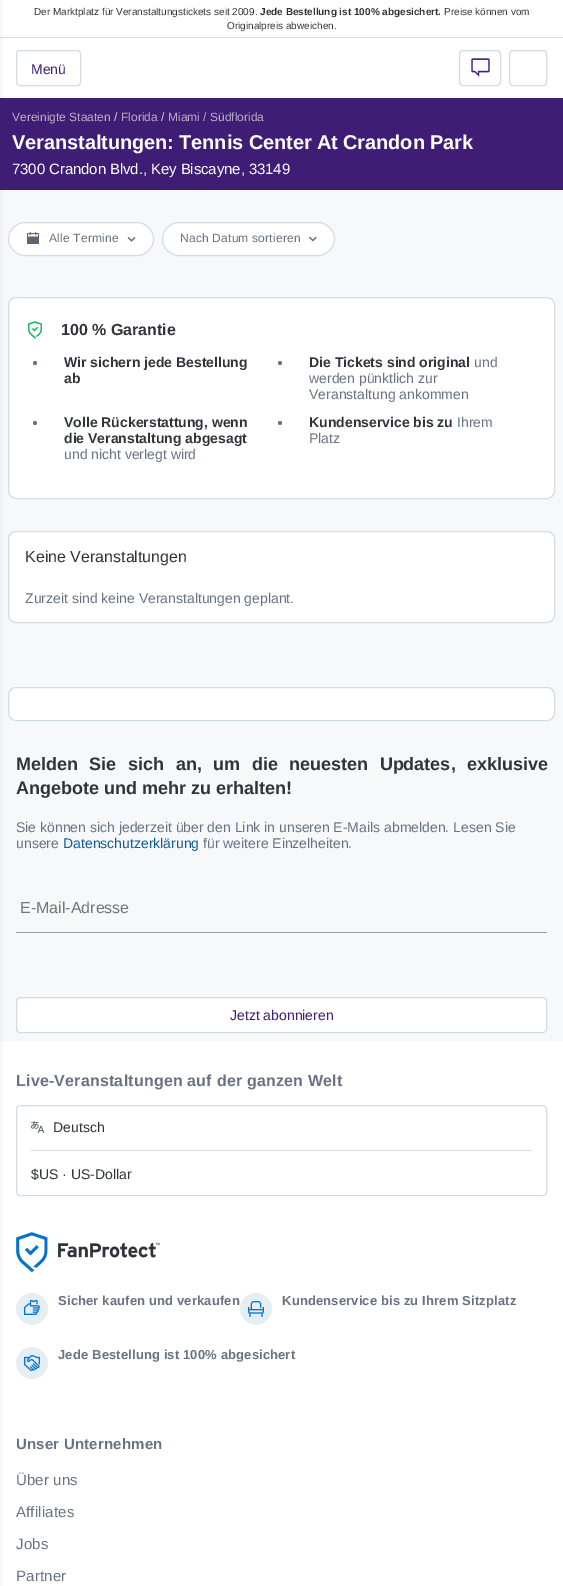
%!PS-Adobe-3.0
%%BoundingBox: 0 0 563 1586
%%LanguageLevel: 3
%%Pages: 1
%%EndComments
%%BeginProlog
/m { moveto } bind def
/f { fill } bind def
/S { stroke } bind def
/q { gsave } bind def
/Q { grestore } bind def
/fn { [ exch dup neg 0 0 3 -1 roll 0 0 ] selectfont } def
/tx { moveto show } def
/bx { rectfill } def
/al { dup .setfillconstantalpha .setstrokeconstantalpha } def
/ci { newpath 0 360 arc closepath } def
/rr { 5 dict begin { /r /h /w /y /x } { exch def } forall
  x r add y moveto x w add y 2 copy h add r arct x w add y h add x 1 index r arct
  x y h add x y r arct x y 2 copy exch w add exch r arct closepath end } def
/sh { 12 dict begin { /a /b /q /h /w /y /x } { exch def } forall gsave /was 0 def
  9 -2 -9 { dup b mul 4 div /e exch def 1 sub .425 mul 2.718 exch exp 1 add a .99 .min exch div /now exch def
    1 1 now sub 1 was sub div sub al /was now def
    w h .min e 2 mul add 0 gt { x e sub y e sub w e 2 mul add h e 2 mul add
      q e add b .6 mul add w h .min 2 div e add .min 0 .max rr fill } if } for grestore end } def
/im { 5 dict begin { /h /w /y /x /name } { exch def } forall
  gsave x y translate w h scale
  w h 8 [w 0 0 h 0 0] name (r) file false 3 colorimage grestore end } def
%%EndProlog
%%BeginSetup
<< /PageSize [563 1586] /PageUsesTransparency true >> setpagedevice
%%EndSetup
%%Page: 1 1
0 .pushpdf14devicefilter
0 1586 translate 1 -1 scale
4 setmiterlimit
0.965 0.973 0.976 setrgbcolor
0 0 563 1586 bx
1 setgray
0 0 563 98 bx
0.82 0.863 0.898 setrgbcolor
0 37 563 1 bx
/LiberationSans-Regular 10 fn
0.184 0.204 0.231 setrgbcolor
(Der Marktplatz für Veranstaltungstickets seit 2009.) 34 15 tx
/LiberationSans-Bold 10 fn
(Jede Bestellung ist 100% abgesichert.) 260 15 tx
/LiberationSans-Regular 10 fn
(Preise können vom) 444 15 tx
(Originalpreis abweichen.) 227 29 tx
0.247 0.114 0.459 setrgbcolor
0 98 563 92 bx
1 setgray
0 1041 563 545 bx
0 setgray
-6 2 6 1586 0 2 0.1 sh
0.82 0.863 0.898 setrgbcolor
16.5 50.5 64 35 3.5 rr S
/LiberationSans-Regular 14 fn
0.247 0.114 0.459 setrgbcolor
(Menü) 31 74 tx
0.82 0.863 0.898 setrgbcolor
459.5 50.5 41 35 3.5 rr S
(image0.raw) 471 58 19 19 im
509.5 50.5 37 35 3.5 rr S
/LiberationSans-Regular 12 fn
0.718 0.682 0.78 setrgbcolor
(Vereinigte Staaten) 12 121 tx
0.851 0.824 0.89 setrgbcolor
(/) 114 121 tx
0.718 0.682 0.78 setrgbcolor
(Florida) 121 121 tx
0.851 0.824 0.89 setrgbcolor
(/) 161 121 tx
0.718 0.682 0.78 setrgbcolor
(Miami / Südflorida) 168 121 tx
/LiberationSans-Bold 20 fn
1 setgray
12 149 m -0.1 0 (Veranstaltungen: Tennis Center At Crandon Park) ashow
/LiberationSans-Regular 15 fn
12 174 m -0.1 0 (7300 Crandon Blvd., Key Biscayne, 33149) ashow
8.5 222.5 145 33 16.5 rr q f Q
0.82 0.863 0.898 setrgbcolor
S
(image1.raw) 27 232 12 12 im
/LiberationSans-Regular 12 fn
0.404 0.451 0.514 setrgbcolor
49 242 m 0.2 0 (Alle Termine) ashow
(image2.raw) 127 237 9 5 im
1 setgray
162.5 222.5 172 33 16.5 rr q f Q
0.82 0.863 0.898 setrgbcolor
S
0.404 0.451 0.514 setrgbcolor
180 242 m 0.2 0 (Nach Datum sortieren) ashow
(image3.raw) 309 236 8 6 im
1 setgray
8.5 297.5 546 201 7.5 rr q f Q
0.82 0.863 0.898 setrgbcolor
S
(image4.raw) 28 321 14 18 im
/LiberationSans-Bold 16 fn
0.184 0.204 0.231 setrgbcolor
(100 % Garantie) 61 335 tx
0.404 0.451 0.514 setrgbcolor
35 363 2 ci f
/LiberationSans-Bold 14 fn
0.184 0.204 0.231 setrgbcolor
(Wir sichern jede Bestellung) 64 367 tx
(ab) 64 383 tx
0.404 0.451 0.514 setrgbcolor
280 363 2 ci f
0.184 0.204 0.231 setrgbcolor
(Die Tickets sind original) 309 367 tx
/LiberationSans-Regular 14 fn
0.404 0.451 0.514 setrgbcolor
(und) 474 367 tx
(werden pünktlich zur) 309 383 tx
(Veranstaltung ankommen) 309 399 tx
35 423 2 ci f
/LiberationSans-Bold 14 fn
0.184 0.204 0.231 setrgbcolor
(Volle Rückerstattung, wenn) 64 427 tx
(die Veranstaltung abgesagt) 64 443 tx
/LiberationSans-Regular 14 fn
0.404 0.451 0.514 setrgbcolor
(und nicht verlegt wird) 64 459 tx
280 423 2 ci f
/LiberationSans-Bold 14 fn
0.184 0.204 0.231 setrgbcolor
(Kundenservice bis zu) 309 427 tx
/LiberationSans-Regular 14 fn
0.404 0.451 0.514 setrgbcolor
(Ihrem) 457 427 tx
(Platz) 309 443 tx
1 setgray
8.5 531.5 546 91 7.5 rr q f Q
0.82 0.863 0.898 setrgbcolor
S
/LiberationSans-Regular 16 fn
0.184 0.204 0.231 setrgbcolor
(Keine Veranstaltungen) 25 562 tx
/LiberationSans-Regular 14 fn
0.404 0.451 0.514 setrgbcolor
(Zurzeit sind keine Veranstaltungen geplant.) 25 603 tx
1 setgray
8.5 687.5 546 33 7.5 rr q f Q
0.82 0.863 0.898 setrgbcolor
S
/LiberationSans-Bold 18 fn
0.184 0.204 0.231 setrgbcolor
16 770 m 6.5 0 32 (Melden Sie sich an, um die neuesten Updates, exklusive) widthshow
(Angebote und mehr zu erhalten!) 16 794 tx
/LiberationSans-Regular 14 fn
0.404 0.451 0.514 setrgbcolor
(Sie können sich jederzeit über den Link in unseren E-Mails abmelden. Lesen Sie) 16 832 tx
(unsere) 16 848 tx
0.059 0.357 0.6 setrgbcolor
(Datenschutzerklärung) 63 848 tx
0.404 0.451 0.514 setrgbcolor
(für weitere Einzelheiten.) 203 848 tx
0.62 setgray
16 932 531 1 bx
/LiberationSans-Regular 16 fn
0.459 setgray
(E-Mail-Adresse) 20 913 tx
1 setgray
16.5 997.5 530 35 3.5 rr q f Q
0.82 0.863 0.898 setrgbcolor
S
/LiberationSans-Regular 14 fn
0.247 0.114 0.459 setrgbcolor
(Jetzt abonnieren) 230 1020 tx
/LiberationSans-Bold 16 fn
0.404 0.451 0.514 setrgbcolor
16 1086 m 0.2 0 (Live-Veranstaltungen auf der ganzen Welt) ashow
0.82 0.863 0.898 setrgbcolor
16.5 1105.5 530 90 3.5 rr S
(image5.raw) 31 1121 14 12 im
/LiberationSans-Regular 14 fn
0.184 0.204 0.231 setrgbcolor
(Deutsch) 53 1132 tx
0.82 0.863 0.898 setrgbcolor
31 1150 501 1 bx
0.184 0.204 0.231 setrgbcolor
($US · US-Dollar) 31 1179 tx
(image6.raw) 16 1232 144 41 im
(image7.raw) 16 1293 32 32 im
/LiberationSans-Bold 13 fn
0.404 0.451 0.514 setrgbcolor
58 1305 m 0.15 0 (Sicher kaufen und verkaufen) ashow
(image8.raw) 240 1293 32 32 im
282 1305 m 0.15 0 (Kundenservice bis zu Ihrem Sitzplatz) ashow
(image9.raw) 16 1347 32 32 im
58 1359 m 0.15 0 (Jede Bestellung ist 100% abgesichert) ashow
/LiberationSans-Bold 15 fn
16 1449 m 0.2 0 (Unser Unternehmen) ashow
/LiberationSans-Regular 15 fn
16 1485 m 0.15 0 (Über uns) ashow
16 1517 m 0.15 0 (Affiliates) ashow
16 1549 m 0.15 0 (Jobs) ashow
16 1581 m 0.15 0 (Partner) ashow
.poppdf14devicefilter showpage
%%EOF
